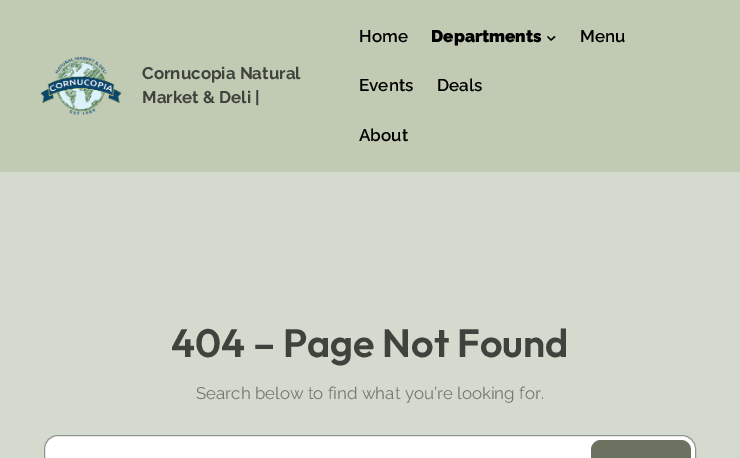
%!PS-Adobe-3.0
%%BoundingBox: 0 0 740 458
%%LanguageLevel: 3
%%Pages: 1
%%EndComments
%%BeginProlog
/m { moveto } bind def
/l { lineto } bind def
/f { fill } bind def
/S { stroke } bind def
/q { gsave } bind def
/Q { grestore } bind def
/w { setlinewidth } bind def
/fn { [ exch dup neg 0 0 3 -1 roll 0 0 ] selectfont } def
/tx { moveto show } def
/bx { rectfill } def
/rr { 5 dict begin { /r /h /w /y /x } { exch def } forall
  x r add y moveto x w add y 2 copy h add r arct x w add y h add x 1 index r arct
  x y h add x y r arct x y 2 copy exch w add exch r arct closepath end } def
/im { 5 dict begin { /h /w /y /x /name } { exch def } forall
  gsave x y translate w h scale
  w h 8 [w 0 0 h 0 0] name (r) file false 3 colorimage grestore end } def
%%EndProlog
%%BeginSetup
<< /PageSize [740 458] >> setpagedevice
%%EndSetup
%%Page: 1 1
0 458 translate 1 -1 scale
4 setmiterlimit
0.835 0.855 0.808 setrgbcolor
0 0 740 458 bx
0.757 0.796 0.706 setrgbcolor
0 0 740 172 bx
(image0.raw) 40 56 82 60 im
/Raleway-Bold 16.9 fn
0.251 0.263 0.239 setrgbcolor
(Cornucopia Natural) 142 79 tx
(Market & Deli |) 142 103 tx
/Raleway-SemiBold 17 fn
0 setgray
(Home) 359 42 tx
/Raleway-Black 17 fn
(Departments) 431 42 tx
1.3 w
547.5 36.5 m 551 40 l 555 36.5 l S
/Raleway-SemiBold 17 fn
(Menu) 580 42 tx
(Events) 359 91 tx
(Deals) 437 91 tx
(About) 359 141 tx
/Outfit-SemiBold 39.6 fn
0.251 0.263 0.239 setrgbcolor
(404 – Page Not Found) 171 357 tx
/Raleway-Regular 16.9 fn
0.459 0.471 0.443 setrgbcolor
(Search below to find what you’re looking for.) 196 399 tx
1 setgray
44.5 435.5 651 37 13.5 rr q f Q
0.58 setgray
1 w
S
0.42 0.451 0.376 setrgbcolor
591 440 100 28 10 rr f
showpage
%%EOF
